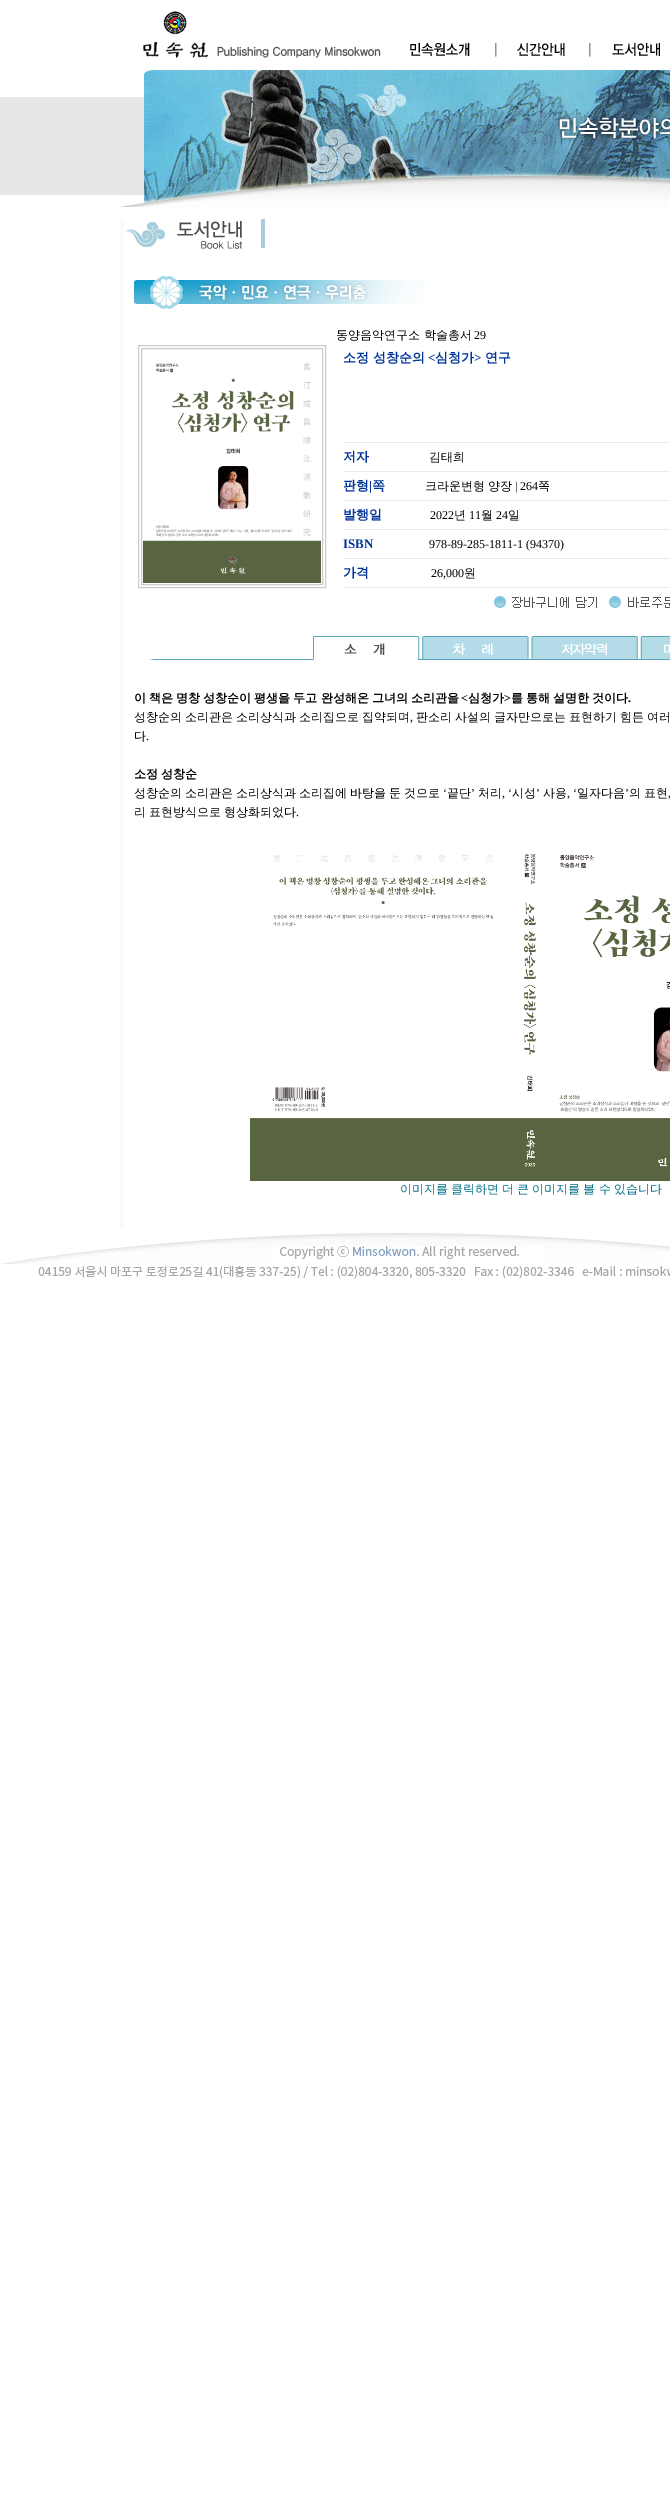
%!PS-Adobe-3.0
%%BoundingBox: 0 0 670 2502
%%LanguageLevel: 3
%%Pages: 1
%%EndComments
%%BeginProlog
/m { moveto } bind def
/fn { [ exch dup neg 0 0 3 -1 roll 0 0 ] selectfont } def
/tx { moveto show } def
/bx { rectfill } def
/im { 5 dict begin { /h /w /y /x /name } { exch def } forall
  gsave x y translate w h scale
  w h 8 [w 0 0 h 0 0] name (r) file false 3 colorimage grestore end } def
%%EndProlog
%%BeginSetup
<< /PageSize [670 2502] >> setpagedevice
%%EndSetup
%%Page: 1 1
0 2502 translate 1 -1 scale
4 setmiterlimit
1 setgray
0 0 670 2502 bx
0.906 setgray
0 97 120 98 bx
(image0.raw) 142 11 239 49 im
(image1.raw) 410 43 60 13 im
(image2.raw) 495 43 2 14 im
(image3.raw) 517 43 48 13 im
(image2.raw) 589 43 2 14 im
(image4.raw) 612 43 48 13 im
(image5.raw) 120 70 550 137 im
0.98 setgray
120 218 4 1010 bx
(image6.raw) 125 219 140 30 im
(image7.raw) 134 276 291 33 im
/WenQuanYiZenHei-Medium 12 fn
0 setgray
(동양음악연구소 학술총서) 336 339 tx
/LiberationSerif-Regular 12 fn
(29) 474 339 tx
0.8 setgray
138.5 345.5 187 242 rectstroke
141.5 348.5 181 236 rectstroke
(image8.raw) 143 363 178 220 im
/WenQuanYiZenHei-Bold 13 fn
0 0.2 0.6 setrgbcolor
(소정 성창순의) 343 362 tx
/LiberationSerif-Bold 13 fn
(<) 428 362 tx
/WenQuanYiZenHei-Bold 13 fn
(심청가) 435 362 tx
/LiberationSerif-Bold 13 fn
(>) 474 362 tx
/WenQuanYiZenHei-Bold 13 fn
(연구) 485 362 tx
0.918 setgray
343 442 327 1 bx
0 0.2 0.6 setrgbcolor
(저자) 343 461 tx
/WenQuanYiZenHei-Medium 12 fn
0 setgray
(김태희) 429 461 tx
0.918 setgray
343 471 327 1 bx
/WenQuanYiZenHei-Bold 13 fn
0 0.2 0.6 setrgbcolor
(판형) 343 490 tx
/LiberationSerif-Bold 13 fn
(|) 369 490 tx
/WenQuanYiZenHei-Bold 13 fn
(쪽) 372 490 tx
/WenQuanYiZenHei-Medium 12 fn
0 setgray
(크라운변형) 425 490 tx
(양장) 488 490 tx
/LiberationSerif-Regular 12 fn
(| 264) 515 490 tx
/WenQuanYiZenHei-Medium 12 fn
(쪽) 538 490 tx
0.918 setgray
343 500 327 1 bx
/WenQuanYiZenHei-Bold 13 fn
0 0.2 0.6 setrgbcolor
(발행일) 343 519 tx
/LiberationSerif-Regular 12 fn
0 setgray
(2022) 430 519 tx
/WenQuanYiZenHei-Medium 12 fn
(년) 454 519 tx
/LiberationSerif-Regular 12 fn
(11) 469 519 tx
/WenQuanYiZenHei-Medium 12 fn
(월) 481 519 tx
/LiberationSerif-Regular 12 fn
(24) 496 519 tx
/WenQuanYiZenHei-Medium 12 fn
(일) 508 519 tx
0.918 setgray
343 529 327 1 bx
/LiberationSerif-Bold 13 fn
0 0.2 0.6 setrgbcolor
(ISBN) 343 548 tx
/LiberationSerif-Regular 12 fn
0 setgray
(978-89-285-1811-1 \(94370\)) 429 548 tx
0.918 setgray
343 558 327 1 bx
/WenQuanYiZenHei-Bold 13 fn
0 0.2 0.6 setrgbcolor
(가격) 343 577 tx
/LiberationSerif-Regular 12 fn
0 setgray
(26,000) 431 577 tx
/WenQuanYiZenHei-Medium 12 fn
(원) 464 577 tx
0.918 setgray
343 587 327 1 bx
(image9.raw) 494 596 12 12 im
(image10.raw) 512 597 85 11 im
(image9.raw) 609 596 12 12 im
(image11.raw) 628 597 42 11 im
(image12.raw) 149 659 164 1 im
(image13.raw) 313 636 108 24 im
(image14.raw) 421 636 109 24 im
(image15.raw) 530 636 109 24 im
(image16.raw) 639 636 31 24 im
/WenQuanYiZenHei-Bold 12 fn
0 setgray
134 702 m -0.5 0 32 (이 책은 명창 성창순이 평생을 두고 완성해온 그녀의 소리관을) widthshow
/LiberationSerif-Bold 12 fn
(<) 461 702 tx
/WenQuanYiZenHei-Bold 12 fn
(심청가) 468 702 tx
/LiberationSerif-Bold 12 fn
(>) 504 702 tx
/WenQuanYiZenHei-Bold 12 fn
511 702 m -0.5 0 32 (를 통해 설명한 것이다) widthshow
/LiberationSerif-Bold 12 fn
(.) 628 702 tx
/WenQuanYiZenHei-Medium 12 fn
134 721 m -0.5 0 32 (성창순의 소리관은 소리상식과 소리집으로 집약되며) widthshow
/LiberationSerif-Regular 12 fn
(,) 410 721 tx
/WenQuanYiZenHei-Medium 12 fn
416 721 m -0.5 0 32 (판소리 사설의 글자만으로는 표현하기 힘든 여러) widthshow
(다) 134 740 tx
/LiberationSerif-Regular 12 fn
(.) 146 740 tx
/WenQuanYiZenHei-Bold 12 fn
134 778 m -0.5 0 32 (소정 성창순) widthshow
/WenQuanYiZenHei-Medium 12 fn
(성창순의) 134 797 tx
(소리관은) 185 797 tx
(소리상식과) 236 797 tx
(소리집에) 299 797 tx
(바탕을) 350 797 tx
(둔) 389 797 tx
(것으로) 404 797 tx
/LiberationSerif-Regular 12 fn
(‘) 443 797 tx
/WenQuanYiZenHei-Medium 12 fn
(끝단) 447 797 tx
/LiberationSerif-Regular 12 fn
(’) 471 797 tx
/WenQuanYiZenHei-Medium 12 fn
(처리) 478 797 tx
/LiberationSerif-Regular 12 fn
(, ‘) 502 797 tx
/WenQuanYiZenHei-Medium 12 fn
(시성) 512 797 tx
/LiberationSerif-Regular 12 fn
(’) 536 797 tx
/WenQuanYiZenHei-Medium 12 fn
(사용) 543 797 tx
/LiberationSerif-Regular 12 fn
(, ‘) 567 797 tx
/WenQuanYiZenHei-Medium 12 fn
(일자다음) 577 797 tx
/LiberationSerif-Regular 12 fn
(’) 625 797 tx
/WenQuanYiZenHei-Medium 12 fn
(의) 629 797 tx
(표현) 644 797 tx
/LiberationSerif-Regular 12 fn
(,) 668 797 tx
/WenQuanYiZenHei-Medium 12 fn
134 816 m -0.5 0 32 (리 표현방식으로 형상화되었다) widthshow
/LiberationSerif-Regular 12 fn
(.) 296 816 tx
(image17.raw) 250 854 420 327 im
/WenQuanYiZenHei-Medium 12 fn
0 0.439 0.529 setrgbcolor
400 1193 m -0.5 0 32 (이미지를 클릭하면 더 큰 이미지를 볼 수 있습니다) widthshow
(image18.raw) 1 1233 669 46 im
showpage
%%EOF
